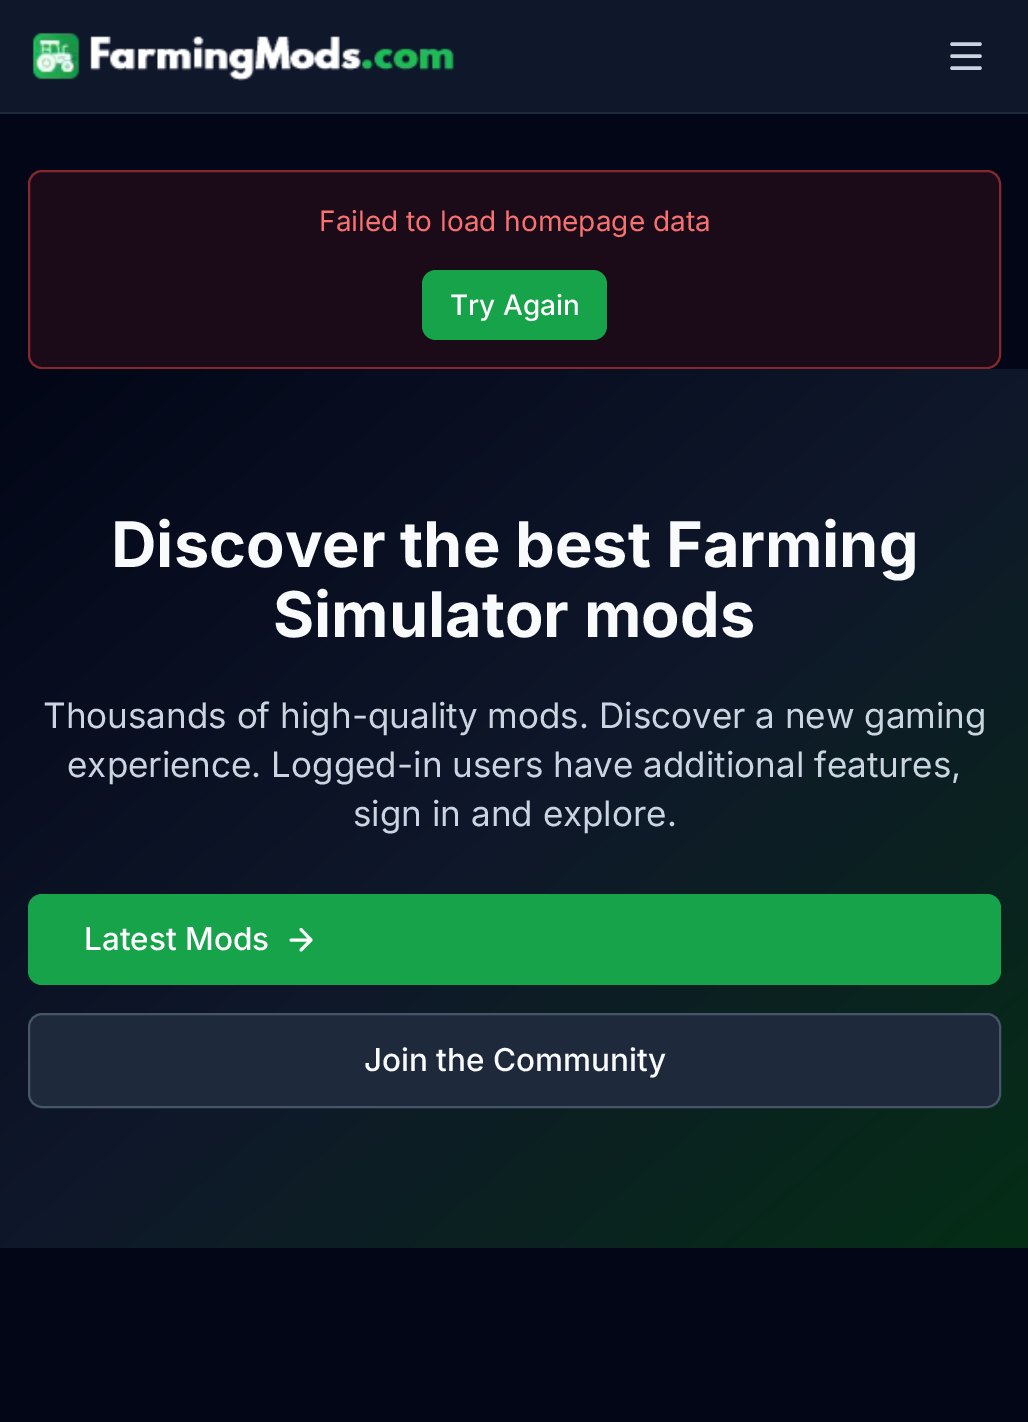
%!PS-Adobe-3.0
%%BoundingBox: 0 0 1028 1422
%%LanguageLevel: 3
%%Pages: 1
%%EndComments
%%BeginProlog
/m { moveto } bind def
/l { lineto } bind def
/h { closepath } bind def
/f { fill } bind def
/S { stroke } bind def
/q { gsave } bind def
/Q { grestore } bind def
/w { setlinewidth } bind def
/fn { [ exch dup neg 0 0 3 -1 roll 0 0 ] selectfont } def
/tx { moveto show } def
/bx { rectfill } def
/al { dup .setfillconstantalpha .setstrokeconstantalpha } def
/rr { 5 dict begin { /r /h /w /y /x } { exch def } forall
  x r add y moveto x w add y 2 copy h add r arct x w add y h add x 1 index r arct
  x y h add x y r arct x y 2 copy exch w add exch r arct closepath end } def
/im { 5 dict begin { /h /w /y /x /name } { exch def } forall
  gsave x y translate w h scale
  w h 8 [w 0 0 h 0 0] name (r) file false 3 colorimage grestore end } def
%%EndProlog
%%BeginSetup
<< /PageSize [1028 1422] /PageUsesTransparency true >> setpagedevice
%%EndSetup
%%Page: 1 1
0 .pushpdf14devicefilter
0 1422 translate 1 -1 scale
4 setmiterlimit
0.008 0.024 0.09 setrgbcolor
0 0 1028 1422 bx
0.059 0.09 0.165 setrgbcolor
0 0 1028 112 bx
0.118 0.161 0.231 setrgbcolor
0 112 1028 2 bx
(image0.raw) 32 32 422 49 im
0.796 0.835 0.882 setrgbcolor
3.5 w
1 setlinecap
1 setlinejoin
952 44 m 980 44 l 952 56 m 980 56 l 952 68 m 980 68 l S
0.106 0.043 0.094 setrgbcolor
28 170 973 199 14 rr f
0.5 al
0.937 0.267 0.267 setrgbcolor
2 w
0 setlinecap
0 setlinejoin
29 171 971 197 13 rr S
/Inter-Regular 28 fn
1 al
0.973 0.443 0.443 setrgbcolor
(Failed to load homepage data) 319 231 tx
0.086 0.639 0.29 setrgbcolor
422 270 185 70 14 rr f
/Inter-Medium 28 fn
1 setgray
(Try Again) 450 315 tx
q 0 369 m 1028 369 l 1028 1248 l 0 1248 l h clip newpath
<< /ShadingType 2 /ColorSpace /DeviceRGB /Coords [81 300 948 1317] /Extend [true true] /Function << /FunctionType 3 /Domain [0 1] /Functions [<< /FunctionType 2 /Domain [0 1] /C0 [0.008 0.024 0.09] /C1 [0.059 0.09 0.165] /N 1 >> << /FunctionType 2 /Domain [0 1] /C0 [0.059 0.09 0.165] /C1 [0.02 0.18 0.086] /N 1 >>] /Bounds [0.5] /Encode [0 1 0 1] >> >> shfill Q
/Inter-Bold 63 fn
0.973 0.98 0.988 setrgbcolor
(Discover the best Farming) 111 567 tx
(Simulator mods) 273 637 tx
/Inter-Regular 35 fn
0.796 0.835 0.882 setrgbcolor
(Thousands of high-quality mods. Discover a new gaming) 43 728 tx
(experience. Logged-in users have additional features,) 67 777 tx
(sign in and explore.) 353 826 tx
0.086 0.639 0.29 setrgbcolor
28 894 973 91 14 rr f
/Inter-Medium 31.5 fn
1 setgray
(Latest Mods) 84 950 tx
2.9 w
1 setlinecap
1 setlinejoin
291 940 m 311 940 l 301 929.5 m 311 940 l 301 950 l S
0.118 0.161 0.231 setrgbcolor
29 1014 971 93 13 rr q f Q
0.278 0.333 0.412 setrgbcolor
2 w
0 setlinecap
0 setlinejoin
S
0.973 0.98 0.988 setrgbcolor
(Join the Community) 364 1071 tx
.poppdf14devicefilter showpage
%%EOF
